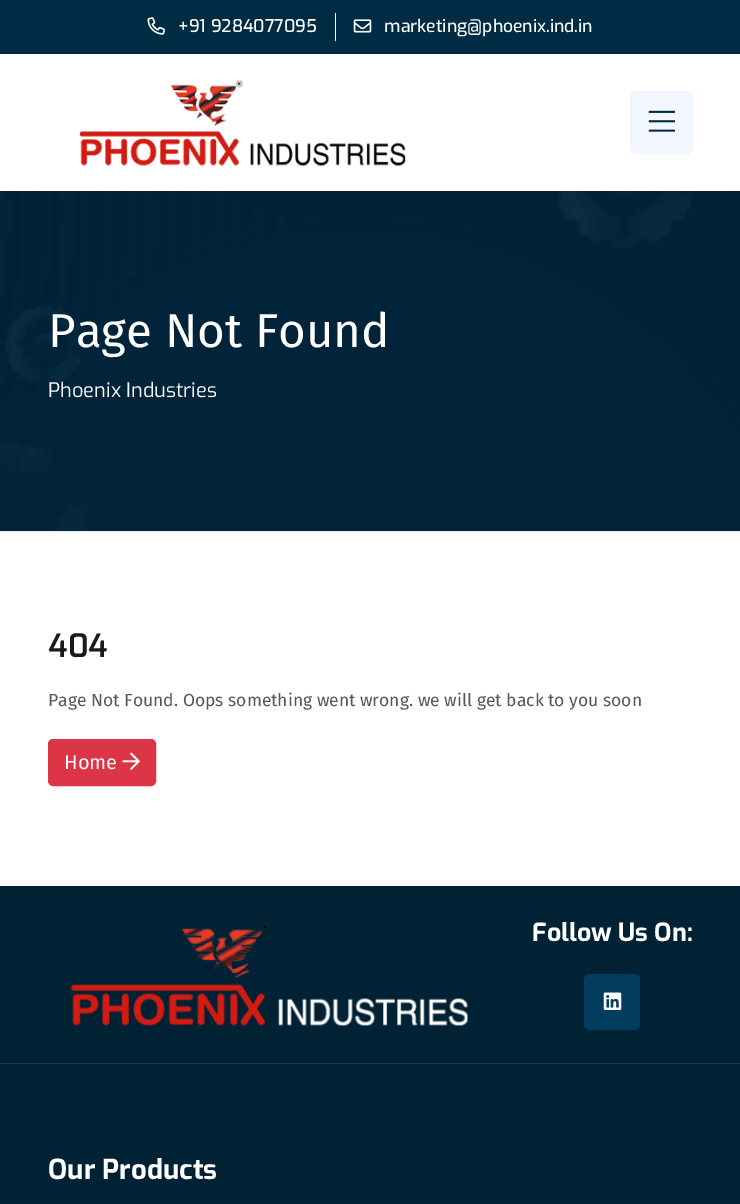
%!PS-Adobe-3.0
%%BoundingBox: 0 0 740 1204
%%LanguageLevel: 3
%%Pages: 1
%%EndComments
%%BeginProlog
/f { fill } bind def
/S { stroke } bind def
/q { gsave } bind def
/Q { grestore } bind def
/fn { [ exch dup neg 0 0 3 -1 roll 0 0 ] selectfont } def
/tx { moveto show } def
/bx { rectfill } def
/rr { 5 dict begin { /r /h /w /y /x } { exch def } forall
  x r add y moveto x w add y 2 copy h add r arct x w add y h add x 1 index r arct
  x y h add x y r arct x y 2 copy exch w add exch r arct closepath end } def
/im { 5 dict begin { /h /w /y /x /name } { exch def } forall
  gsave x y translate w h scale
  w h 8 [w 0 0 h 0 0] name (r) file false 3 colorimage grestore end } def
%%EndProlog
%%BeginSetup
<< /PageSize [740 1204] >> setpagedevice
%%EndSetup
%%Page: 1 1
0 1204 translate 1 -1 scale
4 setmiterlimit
1 setgray
0 0 740 1204 bx
0 0.169 0.267 setrgbcolor
0 0 740 54 bx
1 setgray
335 13 1 28 bx
(image0.raw) 147 17 18 18 im
/Exo-Medium 17.5 fn
(+91 9284077095) 178 32 tx
(image1.raw) 353 19 19 14 im
(marketing@phoenix.ind.in) 384 32 tx
(image2.raw) 79 80 327 86 im
0.949 0.965 1 setrgbcolor
630 91 63 63 6 rr f
(image3.raw) 648 110 27 22 im
(image4.raw) 0 191 740 340 im
/FiraSans-Regular 47.5 fn
1 setgray
(Page Not Found) 48 347 tx
/Exo-Regular 20 fn
(Phoenix Industries) 48 397 tx
0.91 0.922 0.965 setrgbcolor
0 531 740 1 bx
/Exo-SemiBold 32 fn
0.102 setgray
(404) 48 657 tx
/FiraSans-Regular 17.5 fn
0.337 0.341 0.341 setrgbcolor
(Page Not Found. Oops something went wrong. we will get back to you soon) 48 706 tx
0.863 0.208 0.271 setrgbcolor
48.5 739.5 107 46 4.5 rr q f Q
S
/FiraSans-Regular 20 fn
1 setgray
(Home) 64 769 tx
(image5.raw) 122 752 18 18 im
0.004 0.133 0.208 setrgbcolor
0 886 740 318 bx
0.114 0.227 0.294 setrgbcolor
0 1063 740 1 bx
(image6.raw) 71 923 397 103 im
/Exo-Bold 25 fn
1 setgray
(Follow Us On:) 532 941 tx
0.008 0.239 0.376 setrgbcolor
584 974 56 56 6 rr f
(image7.raw) 603 992 19 18 im
/Exo-Bold 27.5 fn
1 setgray
(Our Products) 48 1179 tx
showpage
%%EOF
